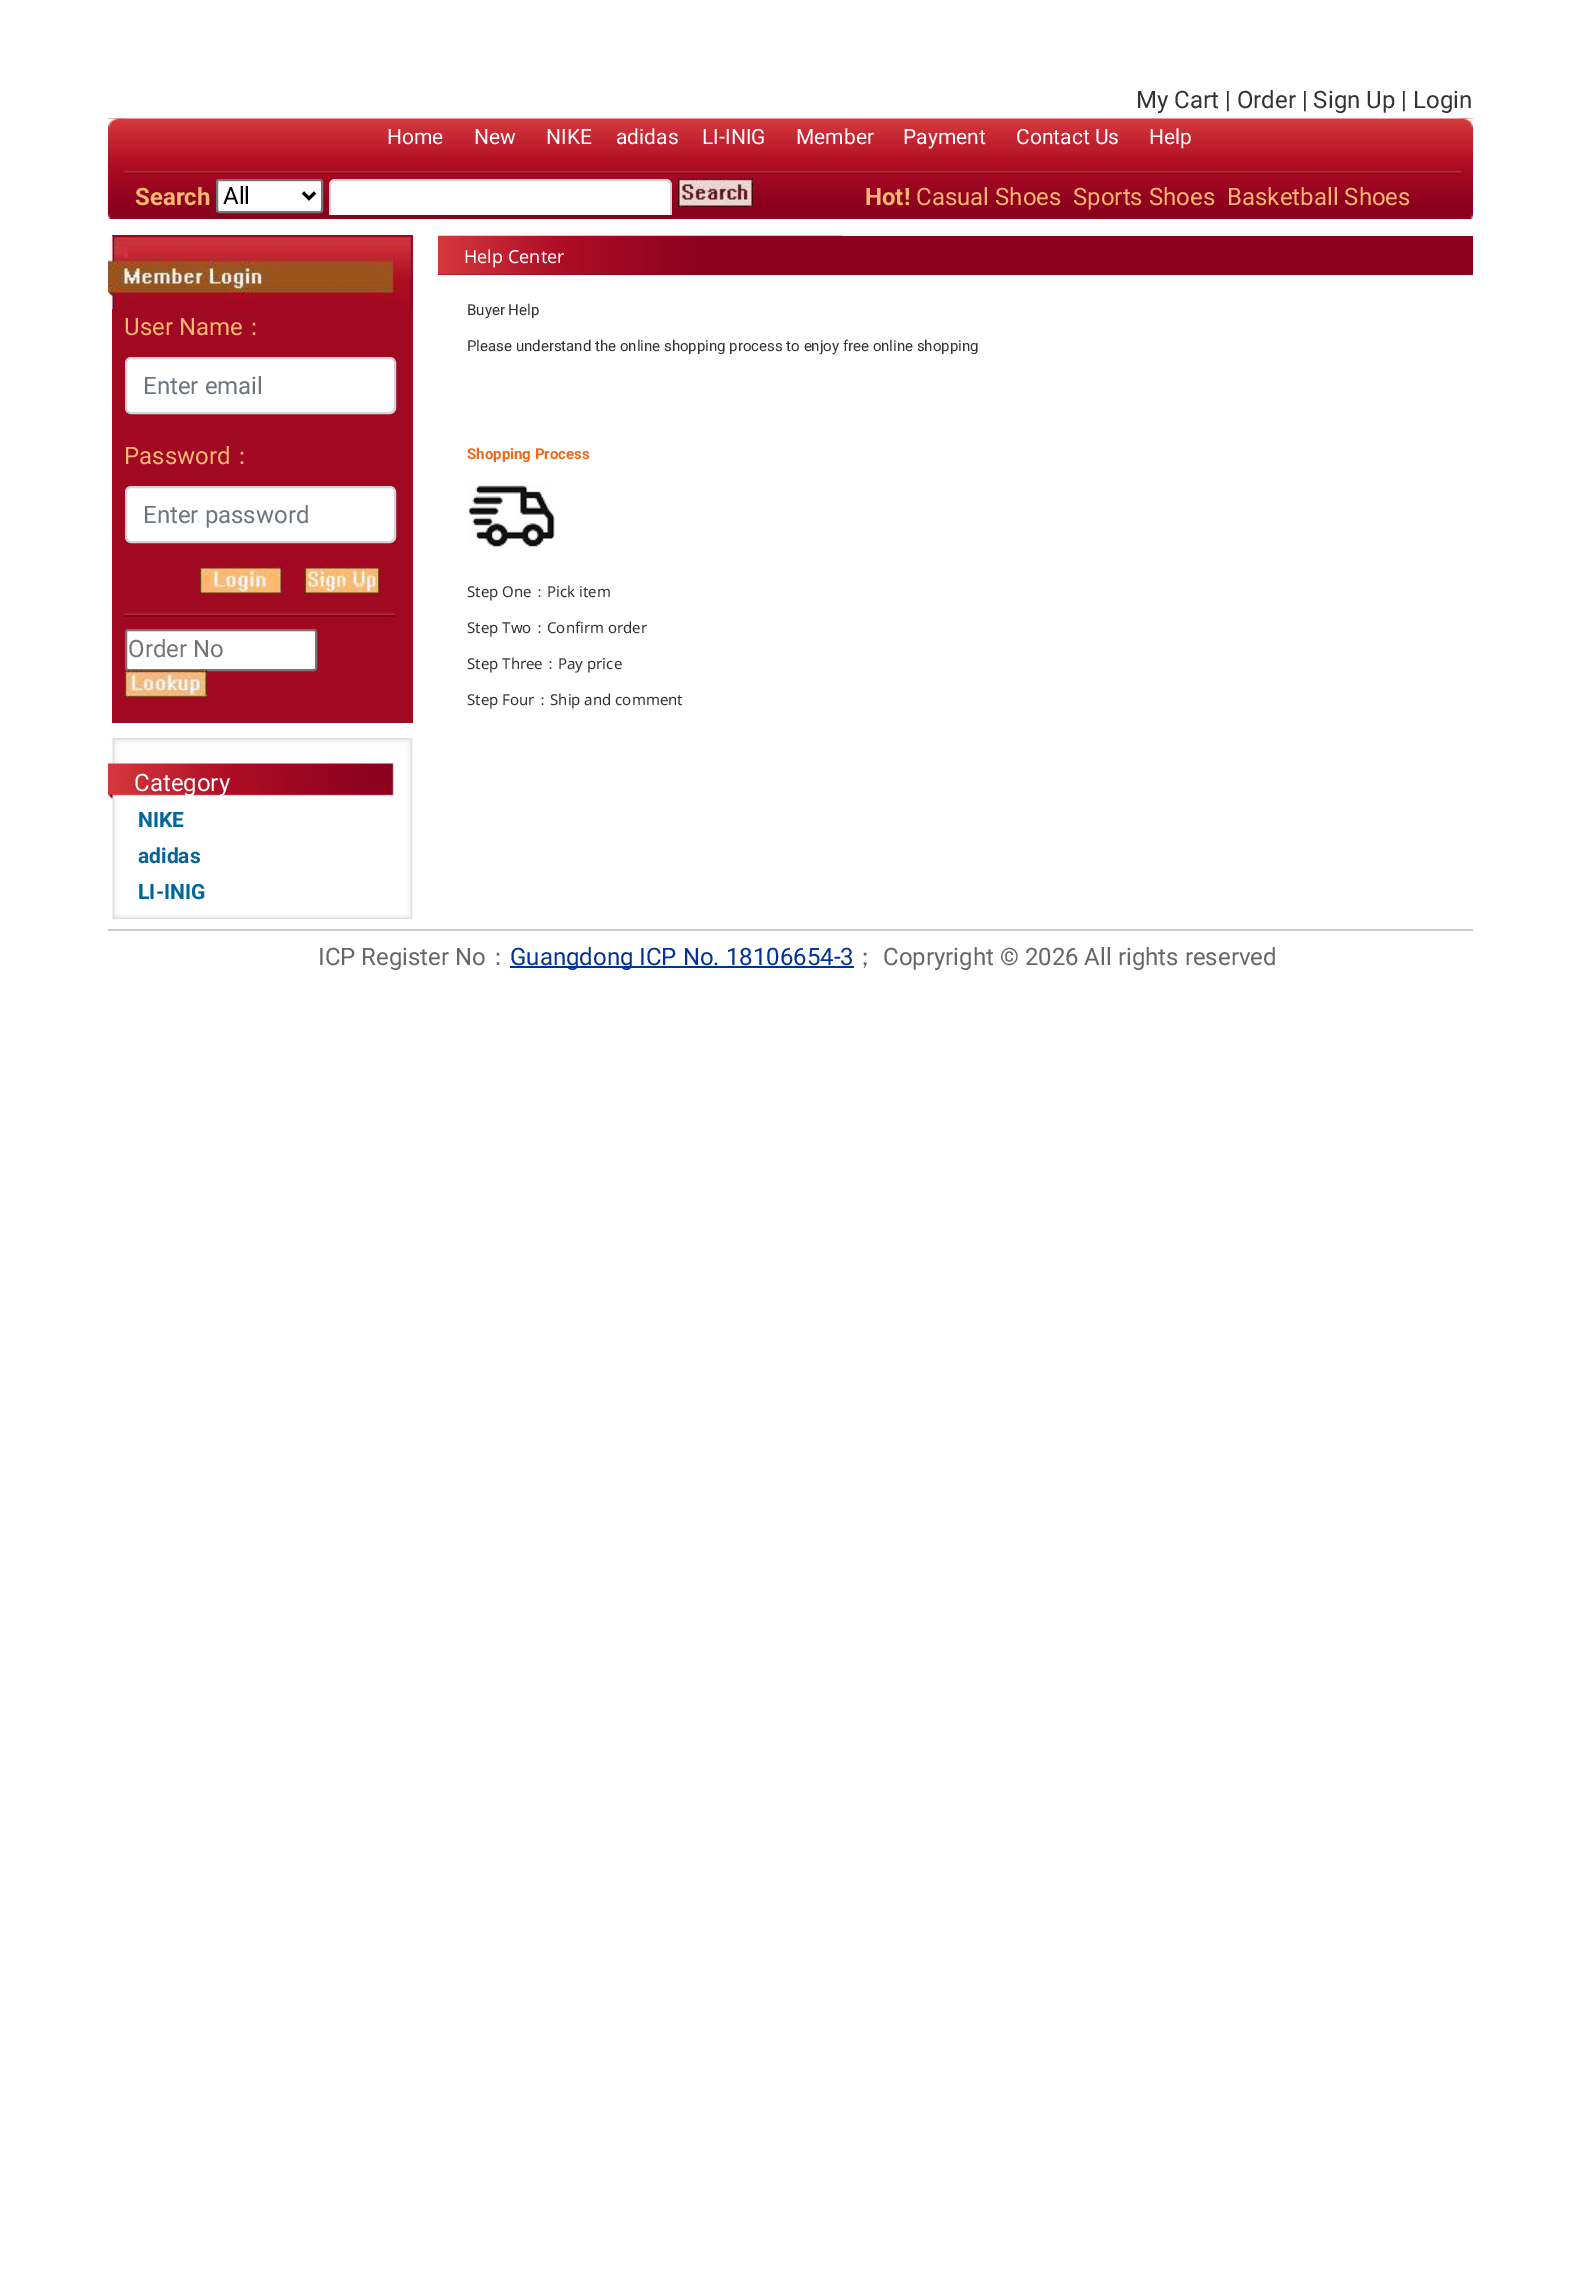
%!PS-Adobe-3.0
%%BoundingBox: 0 0 1579 2270
%%LanguageLevel: 3
%%Pages: 1
%%EndComments
%%BeginProlog
/m { moveto } bind def
/l { lineto } bind def
/c { curveto } bind def
/h { closepath } bind def
/f { fill } bind def
/S { stroke } bind def
/q { gsave } bind def
/Q { grestore } bind def
/w { setlinewidth } bind def
/fn { [ exch dup neg 0 0 3 -1 roll 0 0 ] selectfont } def
/tx { moveto show } def
/bx { rectfill } def
/rr { 5 dict begin { /r /h /w /y /x } { exch def } forall
  x r add y moveto x w add y 2 copy h add r arct x w add y h add x 1 index r arct
  x y h add x y r arct x y 2 copy exch w add exch r arct closepath end } def
/im { 5 dict begin { /h /w /y /x /name } { exch def } forall
  gsave x y translate w h scale
  w h 8 [w 0 0 h 0 0] name (r) file false 3 colorimage grestore end } def
%%EndProlog
%%BeginSetup
<< /PageSize [1579 2270] >> setpagedevice
%%EndSetup
%%Page: 1 1
0 2270 translate 1 -1 scale
4 setmiterlimit
1 setgray
0 0 1579 2270 bx
/Roboto-Regular 24 fn
0.2 setgray
(My Cart | Order | Sign Up | Login) 1136 108 tx
(image0.raw) 108 118 1365 101 im
(image1.raw) 108 118 17 101 im
(image2.raw) 1461 118 12 101 im
/Roboto-Regular 21 fn
1 setgray
(Home) 387 144 tx
(New) 474 144 tx
(NIKE) 546 144 tx
(adidas) 616 144 tx
(LI-INIG) 702 144 tx
(Member) 796 144 tx
(Payment) 903 144 tx
(Contact Us) 1016 144 tx
(Help) 1149 144 tx
/Roboto-Bold 24 fn
1 0.729 0.439 setrgbcolor
(Search) 135 205 tx
1 setgray
217 180 105 32 2 rr q f Q
0.463 setgray
2 w
S
0 setgray
3 w
303 192.5 m 309 198.5 l 315 192.5 l S
/Roboto-Regular 24 fn
(All) 223 204 tx
1 setgray
335 180 m 666 180 l 669 180 671 182 671 185 c 671 215 l 330 215 l 330 185 l 330 182 332 180 335 180 c h f
q
329 179 343 36 rectclip
0.808 0.831 0.855 setrgbcolor
2 w
330 180 341 55 5 rr S
Q
(image3.raw) 678 178 75 29 im
/Roboto-Bold 24 fn
1 0.729 0.439 setrgbcolor
(Hot!) 865 205 tx
/Roboto-Regular 24 fn
(Casual Shoes) 916 205 tx
(Sports Shoes) 1073 205 tx
(Basketball Shoes) 1227 205 tx
0.631 0.035 0.133 setrgbcolor
112 235 301 488 bx
(image4.raw) 108 235 304 74 im
1 0.729 0.439 setrgbcolor
(User Name) 124 335 tx
/WenQuanYiZenHei-Medium 24 fn
(：) 242 335 tx
1 setgray
126 358 269 55 5 rr q f Q
0.808 0.831 0.855 setrgbcolor
2 w
S
/Roboto-Regular 24 fn
0.424 0.459 0.49 setrgbcolor
(Enter email) 143 394 tx
1 0.729 0.439 setrgbcolor
(Password) 124 464 tx
/WenQuanYiZenHei-Medium 24 fn
(：) 230 464 tx
1 setgray
126 487 269 55 5 rr q f Q
0.808 0.831 0.855 setrgbcolor
S
/Roboto-Regular 24 fn
0.424 0.459 0.49 setrgbcolor
(Enter password) 143 523 tx
(image5.raw) 199 567 83 27 im
(image6.raw) 304 567 76 27 im
(image7.raw) 124 613 271 4 im
1 setgray
126 630 190 40 2 rr q f Q
0.463 setgray
S
0.459 setgray
(Order No) 128 657 tx
(image8.raw) 124 670 83 28 im
(image9.raw) 112 738 301 182 im
(image10.raw) 108 738 303 61 im
1 setgray
(Category) 134 791 tx
/Roboto-Bold 21 fn
0 0.4 0.6 setrgbcolor
(NIKE) 138 827 tx
(adidas) 138 863 tx
(LI-INIG) 138 899 tx
(image11.raw) 114 914 297 6 im
0.549 0 0.114 setrgbcolor
438 236 1035 39 bx
(image12.raw) 438 235 405 40 im
/NotoSans-Regular 18 fn
1 setgray
(Help Center) 464 263 tx
/Roboto-Regular 15 fn
0.2 setgray
(Buyer Help) 467 315 tx
(Please understand the online shopping process to enjoy free online shopping) 467 351 tx
/Roboto-Bold 15 fn
0.937 0.412 0.094 setrgbcolor
(Shopping Process) 467 459 tx
(image13.raw) 468 485 87 62 im
/NotoSans-Regular 15 fn
0.2 setgray
(Step One) 467 597 tx
/WenQuanYiZenHei-Medium 15 fn
(：) 532 597 tx
/NotoSans-Regular 15 fn
(Pick item) 547 597 tx
(Step Two) 467 633 tx
/WenQuanYiZenHei-Medium 15 fn
(：) 532 633 tx
/NotoSans-Regular 15 fn
(Confirm order) 547 633 tx
(Step Three) 467 669 tx
/WenQuanYiZenHei-Medium 15 fn
(：) 543 669 tx
/NotoSans-Regular 15 fn
(Pay price) 558 669 tx
(Step Four) 467 705 tx
/WenQuanYiZenHei-Medium 15 fn
(：) 535 705 tx
/NotoSans-Regular 15 fn
(Ship and comment) 550 705 tx
0.8 setgray
108 929 1365 2 bx
/Roboto-Regular 24 fn
0.4 setgray
(ICP Register No) 318 965 tx
/WenQuanYiZenHei-Medium 24 fn
(：) 486 965 tx
0 0.2 0.6 setrgbcolor
510 966 344 2 bx
/Roboto-Regular 24 fn
(Guangdong ICP No. 18106654-3) 510 965 tx
/WenQuanYiZenHei-Medium 24 fn
0.4 setgray
(；) 853 965 tx
/Roboto-Regular 24 fn
(Copryright © 2026 All rights reserved) 883 965 tx
showpage
%%EOF
